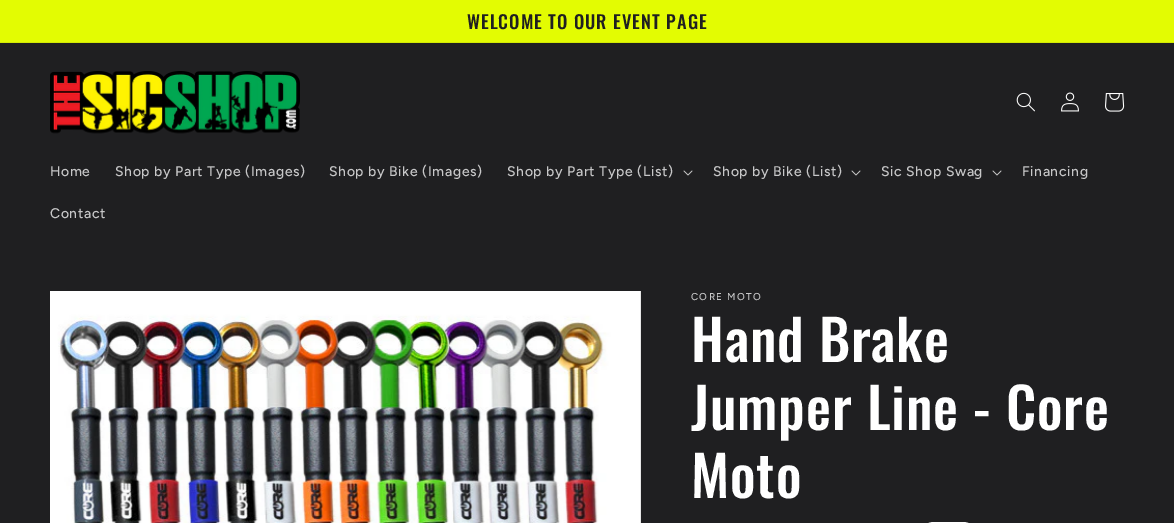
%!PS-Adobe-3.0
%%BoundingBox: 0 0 1174 523
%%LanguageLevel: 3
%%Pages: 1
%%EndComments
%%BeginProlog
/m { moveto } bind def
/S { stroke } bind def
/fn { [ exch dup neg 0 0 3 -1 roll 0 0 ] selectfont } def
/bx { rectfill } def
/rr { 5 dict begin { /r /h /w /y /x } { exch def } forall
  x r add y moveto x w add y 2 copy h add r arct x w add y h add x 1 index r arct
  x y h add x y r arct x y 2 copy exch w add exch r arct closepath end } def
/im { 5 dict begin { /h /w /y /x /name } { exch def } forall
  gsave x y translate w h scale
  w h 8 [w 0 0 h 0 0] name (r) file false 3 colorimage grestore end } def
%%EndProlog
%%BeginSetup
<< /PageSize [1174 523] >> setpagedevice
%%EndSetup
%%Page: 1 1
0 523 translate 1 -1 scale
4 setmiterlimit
0.122 0.122 0.129 setrgbcolor
0 0 1174 523 bx
0.89 0.988 0.008 setrgbcolor
0 0 1174 42 bx
0.827 0.918 0.016 setrgbcolor
0 42 1174 1 bx
/Oswald-Medium 18.25 fn
0.122 0.122 0.129 setrgbcolor
467 29 m 1 0 (WELCOME TO OUR EVENT PAGE) ashow
(image0.raw) 50 71 250 63 im
(image1.raw) 1016 92 19 20 im
(image2.raw) 1061 92 18 20 im
(image3.raw) 1105 93 20 19 im
/Figtree-Medium 14 fn
0.78 0.78 0.784 setrgbcolor
50 176 m 0.6 0 (Home) ashow
115 176 m 0.6 0 (Shop by Part Type \(Images\)) ashow
329 176 m 0.6 0 (Shop by Bike \(Images\)) ashow
507 176 m 0.6 0 (Shop by Part Type \(List\)) ashow
(image4.raw) 683 170 10 6 im
713 176 m 0.6 0 (Shop by Bike \(List\)) ashow
(image4.raw) 851 170 10 6 im
881 176 m 0.6 0 (Sic Shop Swag) ashow
(image4.raw) 992 170 10 6 im
1022 176 m 0.6 0 (Financing) ashow
50 218 m 0.6 0 (Contact) ashow
(image5.raw) 50 291 591 232 im
/Figtree-Medium 10 fn
691 300 m 1.25 0 (CORE MOTO) ashow
/Oswald-Medium 56 fn
1 setgray
691 362 m 0.8 0 (Hand Brake) ashow
691 430 m 0.8 0 (Jumper Line - Core) ashow
691 498 m 0.8 0 (Moto) ashow
921.5 522.5 54 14 12 rr S
showpage
%%EOF
